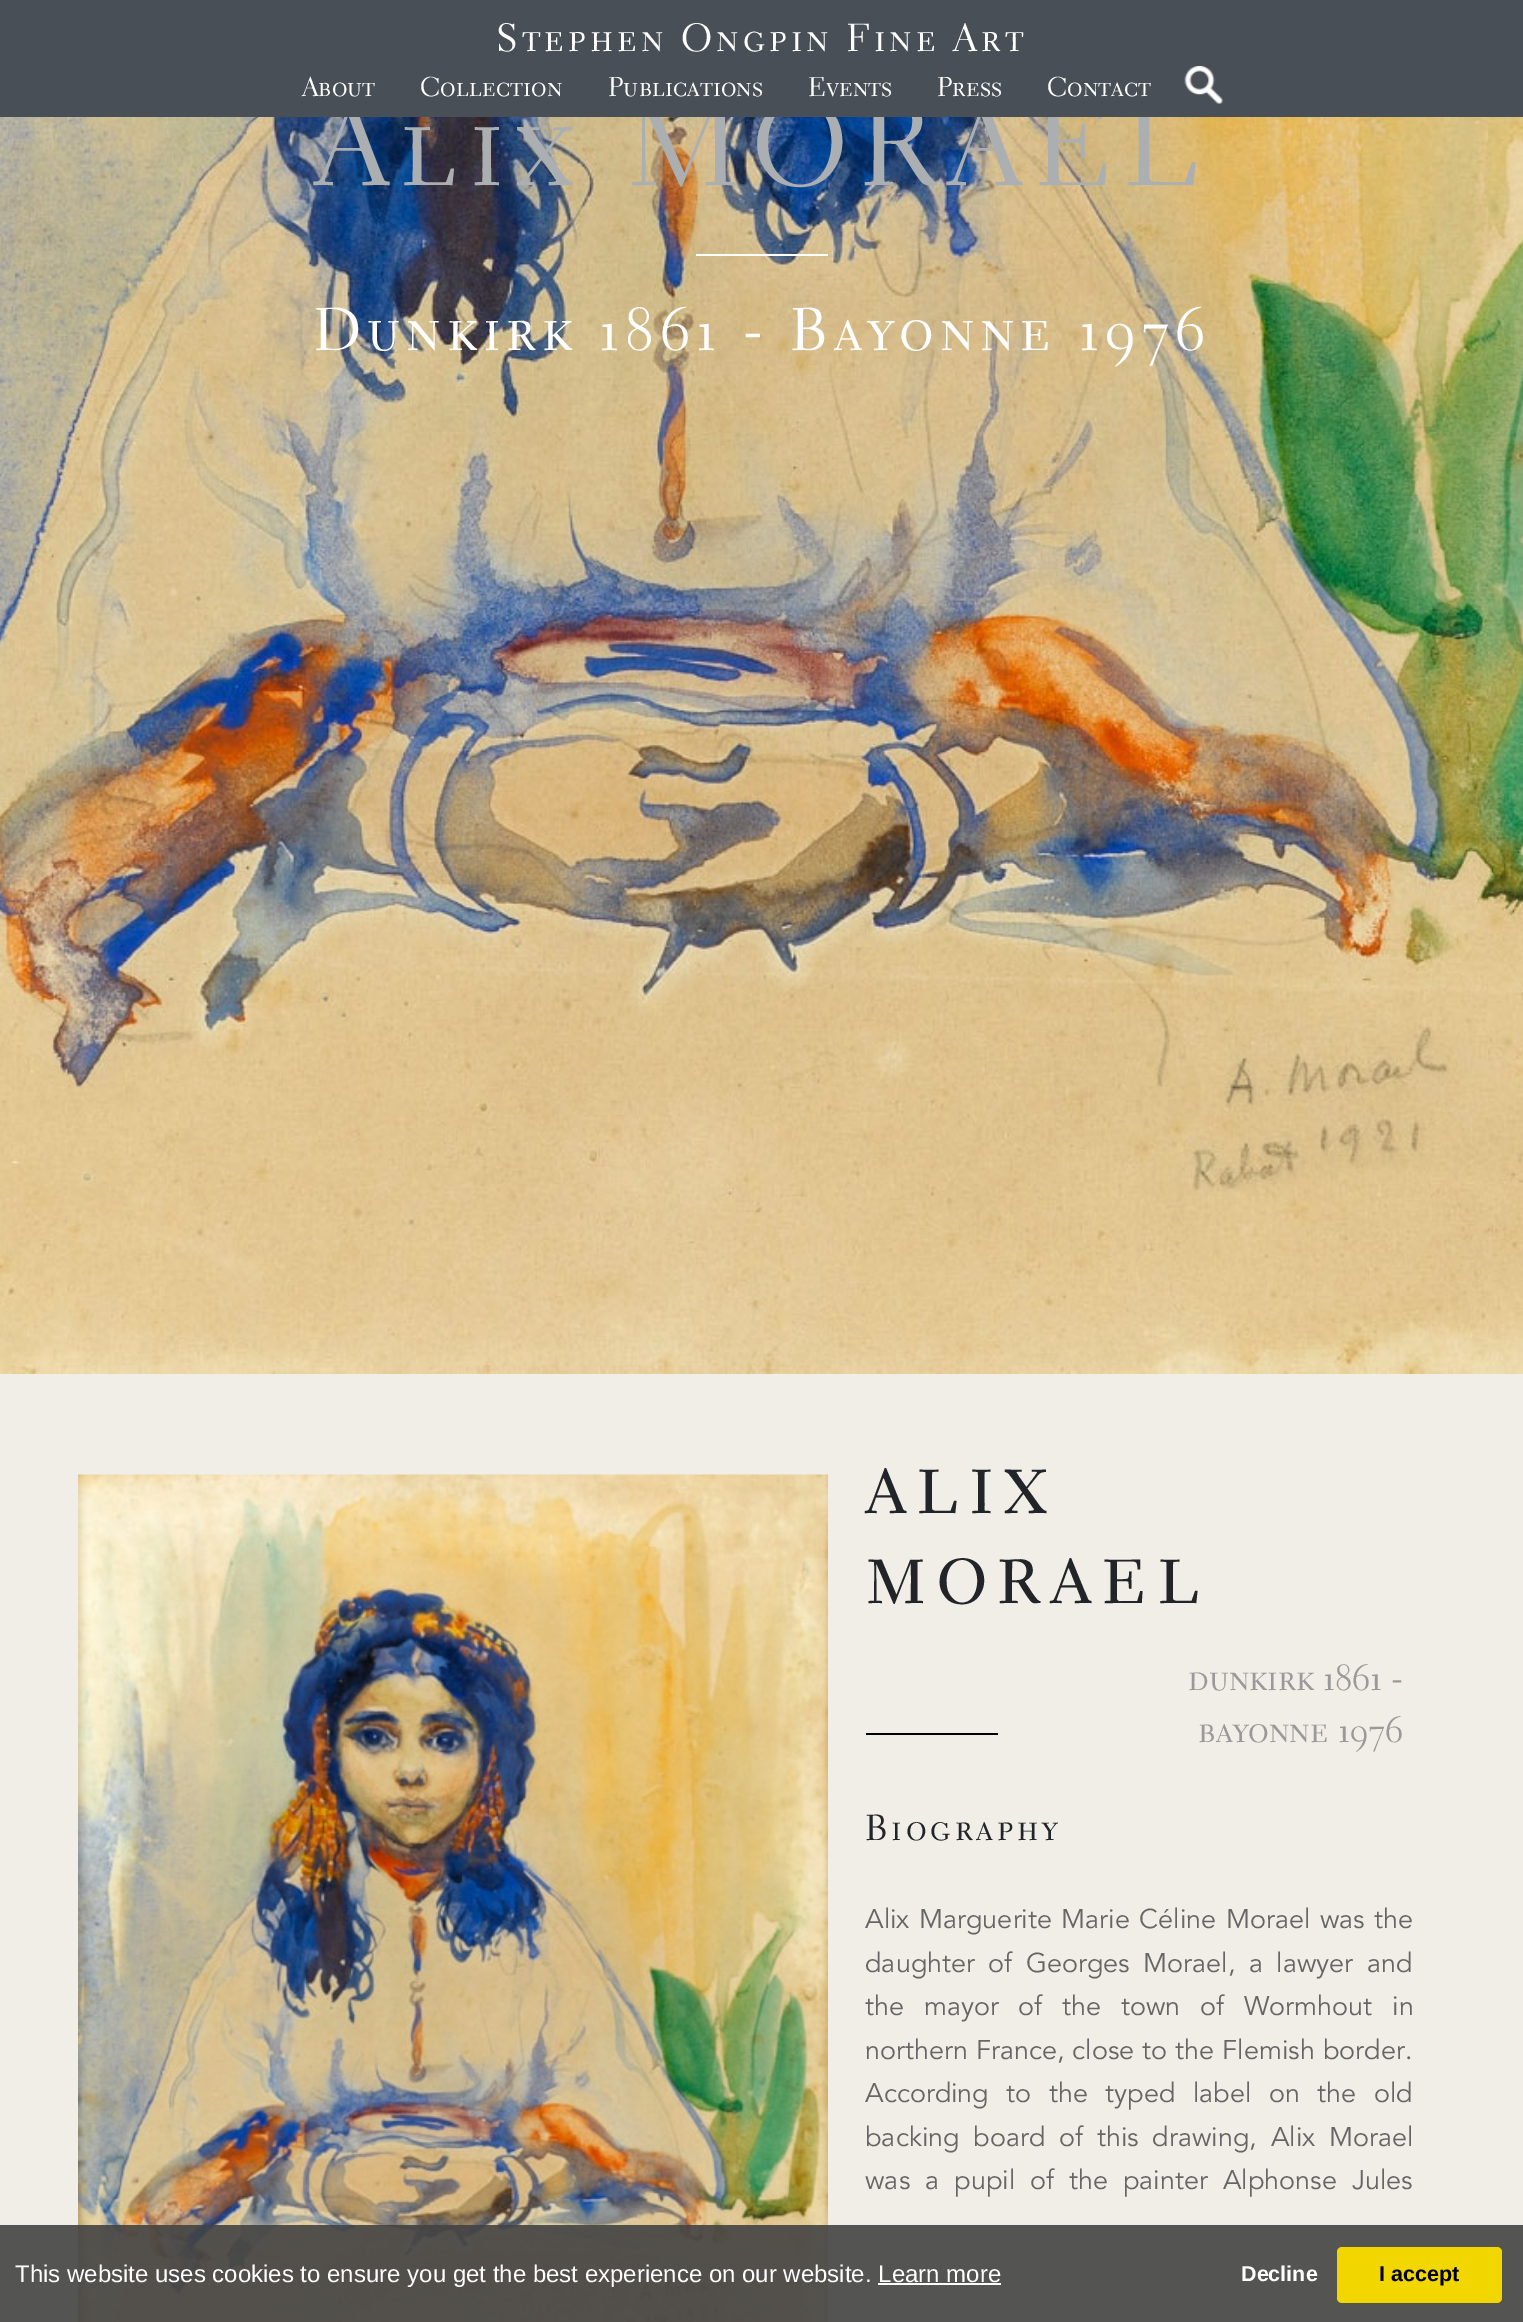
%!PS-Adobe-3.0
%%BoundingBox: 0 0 1523 2322
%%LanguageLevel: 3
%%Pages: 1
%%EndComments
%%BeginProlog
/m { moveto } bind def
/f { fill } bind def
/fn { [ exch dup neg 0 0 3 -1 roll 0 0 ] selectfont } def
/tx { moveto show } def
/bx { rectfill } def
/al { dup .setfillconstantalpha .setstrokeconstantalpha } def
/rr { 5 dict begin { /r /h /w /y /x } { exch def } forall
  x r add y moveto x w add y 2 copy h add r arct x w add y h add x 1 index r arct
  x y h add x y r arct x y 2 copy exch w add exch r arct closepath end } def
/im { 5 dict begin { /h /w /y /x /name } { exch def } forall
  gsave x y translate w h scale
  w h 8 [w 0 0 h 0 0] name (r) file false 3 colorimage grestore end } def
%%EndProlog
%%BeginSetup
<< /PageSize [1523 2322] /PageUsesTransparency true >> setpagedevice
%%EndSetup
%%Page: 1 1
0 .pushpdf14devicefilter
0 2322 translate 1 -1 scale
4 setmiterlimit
0.945 0.933 0.906 setrgbcolor
0 0 1523 2322 bx
(image1.raw) 0 117 1523 1257 im
/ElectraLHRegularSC-Regular 120 fn
0.675 0.686 0.694 setrgbcolor
315 185 m 11.5 0 (Alix MORAEL) ashow
0.286 0.31 0.337 setrgbcolor
0 0 1523 117 bx
/ElectraLHRegularSC-Regular 39 fn
1 setgray
496 51 m 3.9 0 (Stephen Ongpin Fine Art) ashow
/ElectraLHRegularSC-Regular 27 fn
(About) 302 96 tx
(Collection) 420 96 tx
(Publications) 608 96 tx
(Events) 808 96 tx
(Press) 937 96 tx
(Contact) 1047 96 tx
(image0.raw) 1184 66 39 38 im
696 254 132 2 bx
/ElectraLHRegularSC-Regular 60 fn
313 350 m 6 0 (Dunkirk 1861 - Bayonne 1976) ashow
(image2.raw) 78 1474 750 848 im
/ElectraLHRegularSC-Regular 90 fn
0.129 0.145 0.161 setrgbcolor
865 1513 m 9 0 (alix) ashow
865 1603 m 9 0 (morael) ashow
/ElectraLHRegularSC-Regular 36 fn
0.6 setgray
(dunkirk 1861 -) 1188 1690 tx
0 setgray
866 1733 132 2 bx
0.6 setgray
(bayonne 1976) 1198 1742 tx
0.129 0.145 0.161 setrgbcolor
865 1840 m 3.75 0 (Biography) ashow
/Avenir-Regular 27 fn
0.4 setgray
865 1928 m 2 0 32 (Alix Marguerite Marie Céline Morael was the) widthshow
865 1972 m 6 0 32 (daughter of Georges Morael, a lawyer and) widthshow
865 2015 m 12.25 0 32 (the mayor of the town of Wormhout in) widthshow
865 2059 m 0.5 0 32 (northern France, close to the Flemish border.) widthshow
865 2102 m 10 0 32 (According to the typed label on the old) widthshow
865 2146 m 6.25 0 32 (backing board of this drawing, Alix Morael) widthshow
865 2189 m 7.5 0 32 (was a pupil of the painter Alphonse Jules) widthshow
0.9 al
0.263 setgray
0 2225 1523 97 bx
/LiberationSans-Regular 24 fn
1 al
1 setgray
(This website uses cookies to ensure you get the best experience on our website. Learn more) 15 2282 tx
878 2283 123 2 bx
/LiberationSans-Bold 21.5 fn
(Decline) 1241 2281 tx
0.945 0.839 0 setrgbcolor
1337 2247 165 56 5 rr f
0 setgray
(I accept) 1379 2281 tx
.poppdf14devicefilter showpage
%%EOF
